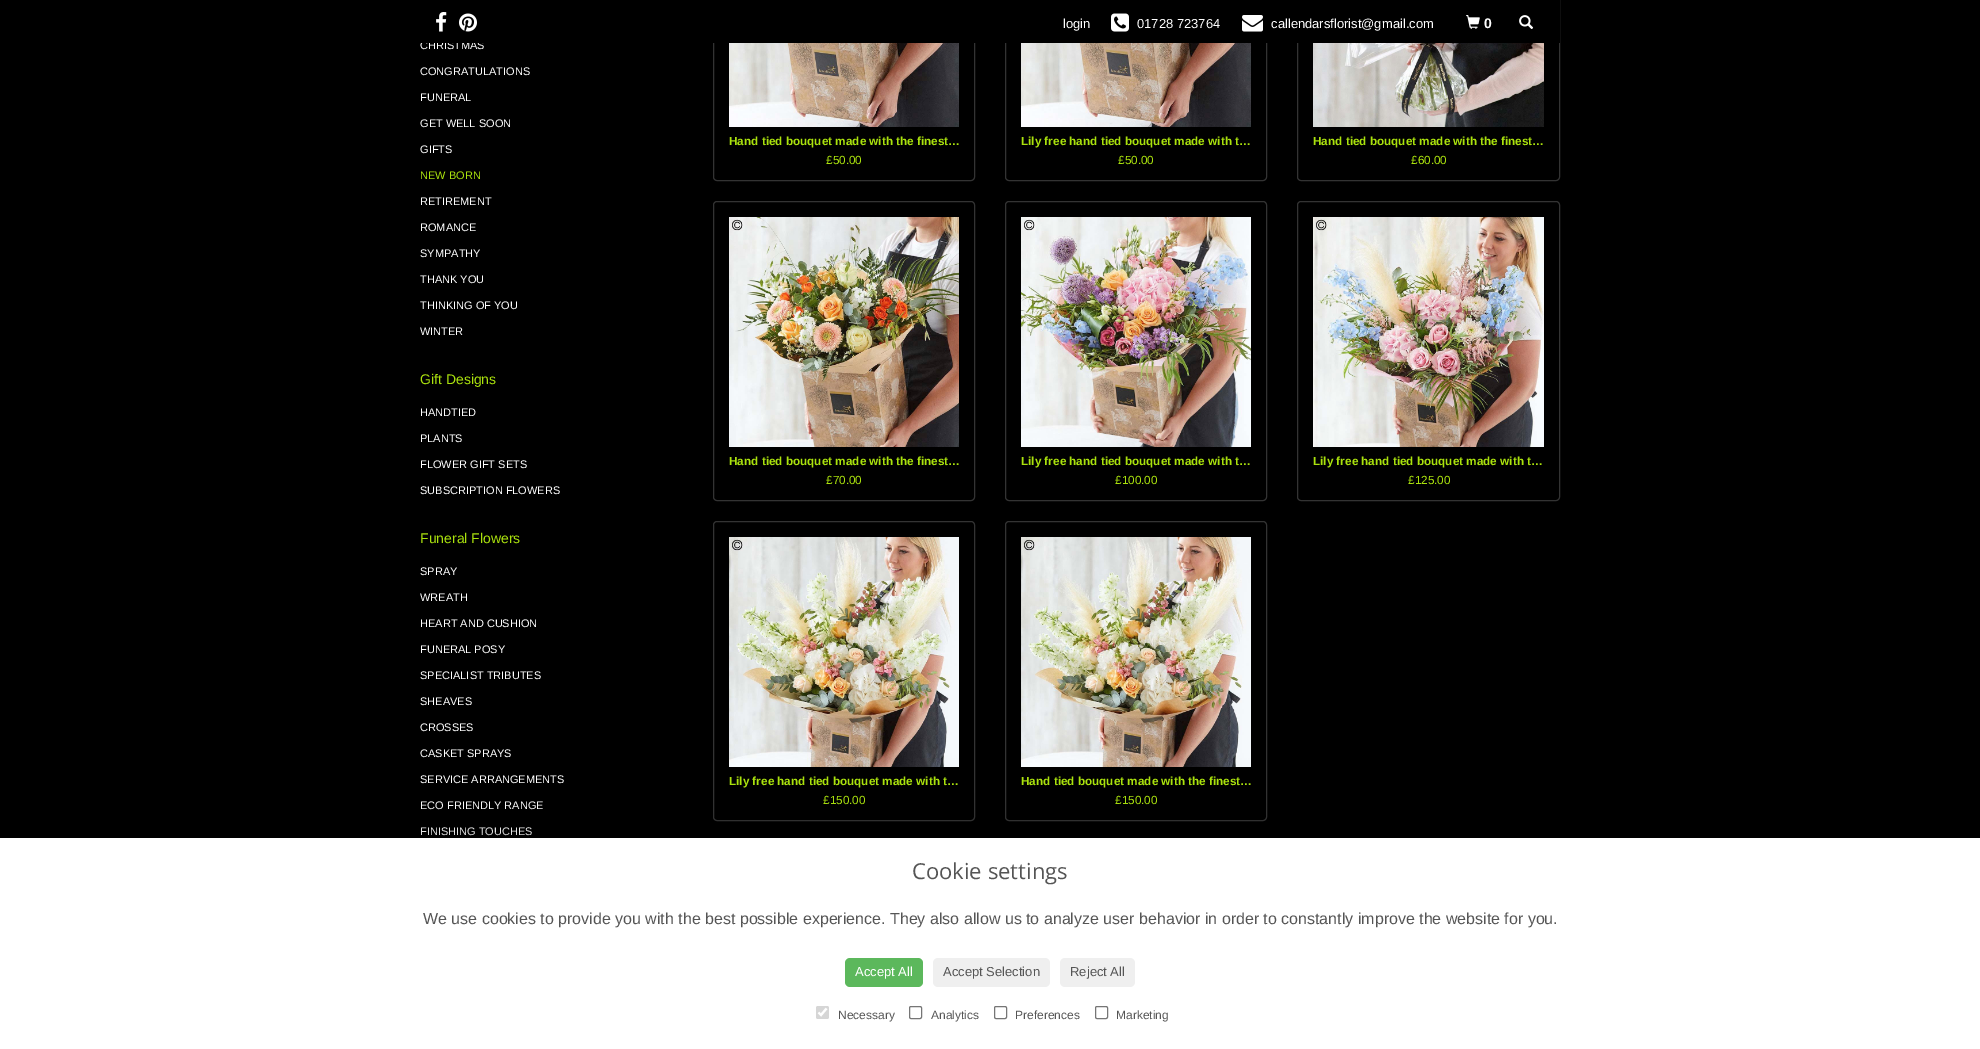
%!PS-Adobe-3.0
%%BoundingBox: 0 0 1980 1049
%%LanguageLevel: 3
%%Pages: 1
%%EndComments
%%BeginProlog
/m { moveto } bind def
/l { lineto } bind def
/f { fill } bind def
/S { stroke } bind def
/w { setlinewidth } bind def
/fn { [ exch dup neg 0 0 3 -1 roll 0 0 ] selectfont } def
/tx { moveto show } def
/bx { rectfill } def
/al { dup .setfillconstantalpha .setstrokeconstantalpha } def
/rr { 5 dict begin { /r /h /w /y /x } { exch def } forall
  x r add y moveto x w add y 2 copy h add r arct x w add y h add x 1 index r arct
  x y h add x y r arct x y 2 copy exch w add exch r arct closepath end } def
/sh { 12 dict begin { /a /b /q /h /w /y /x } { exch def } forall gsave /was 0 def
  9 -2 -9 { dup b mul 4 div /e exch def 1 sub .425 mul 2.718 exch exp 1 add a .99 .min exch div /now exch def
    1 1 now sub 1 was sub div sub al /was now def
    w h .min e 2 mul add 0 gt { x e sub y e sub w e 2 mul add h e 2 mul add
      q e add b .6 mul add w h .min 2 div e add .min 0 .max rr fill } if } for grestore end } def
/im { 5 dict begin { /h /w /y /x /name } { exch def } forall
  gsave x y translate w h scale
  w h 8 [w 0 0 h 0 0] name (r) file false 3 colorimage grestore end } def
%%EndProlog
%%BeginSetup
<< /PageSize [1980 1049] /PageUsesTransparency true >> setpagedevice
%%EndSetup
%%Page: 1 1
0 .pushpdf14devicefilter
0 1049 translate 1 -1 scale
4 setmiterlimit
0 setgray
0 0 1980 1049 bx
/LiberationSans-Regular 11 fn
1 setgray
(CHRISTMAS) 420 49 tx
0.2 setgray
713.5 -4.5 261 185 3.5 rr S
1005.5 -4.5 261 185 3.5 rr S
1297.5 -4.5 262 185 3.5 rr S
0 setgray
421 0 1139 43 bx
(image0.raw) 436 12 11 20 im
(image1.raw) 459 13 18 19 im
/LiberationSans-Regular 13 fn
1 setgray
(login) 1063 28 tx
(image2.raw) 1111 13 18 19 im
(01728 723764) 1137 28 tx
(image3.raw) 1242 15 21 17 im
(callendarsflorist@gmail.com) 1271 28 tx
(image4.raw) 1466 15 14 14 im
/LiberationSans-Bold 14 fn
(0) 1484 28 tx
(image5.raw) 1519 15 15 14 im
/LiberationSans-Regular 11 fn
(CONGRATULATIONS) 420 75 tx
(FUNERAL) 420 101 tx
(GET WELL SOON) 420 127 tx
(GIFTS) 420 153 tx
0.667 0.886 0.051 setrgbcolor
(NEW BORN) 420 179 tx
1 setgray
(RETIREMENT) 420 205 tx
(ROMANCE) 420 231 tx
(SYMPATHY) 420 257 tx
(THANK YOU) 420 283 tx
(THINKING OF YOU) 420 309 tx
(WINTER) 420 335 tx
/LiberationSans-Regular 14 fn
0.667 0.886 0.051 setrgbcolor
(Gift Designs) 420 384 tx
/LiberationSans-Regular 11 fn
1 setgray
(HANDTIED) 420 416 tx
(PLANTS) 420 442 tx
(FLOWER GIFT SETS) 420 468 tx
(SUBSCRIPTION FLOWERS) 420 494 tx
/LiberationSans-Regular 14 fn
0.667 0.886 0.051 setrgbcolor
(Funeral Flowers) 420 543 tx
/LiberationSans-Regular 11 fn
1 setgray
(SPRAY) 420 575 tx
(WREATH) 420 601 tx
(HEART AND CUSHION) 420 627 tx
(FUNERAL POSY) 420 653 tx
(SPECIALIST TRIBUTES) 420 679 tx
(SHEAVES) 420 705 tx
(CROSSES) 420 731 tx
(CASKET SPRAYS) 420 757 tx
(SERVICE ARRANGEMENTS) 420 783 tx
(ECO FRIENDLY RANGE) 420 809 tx
(FINISHING TOUCHES) 420 835 tx
(image6.raw) 729 43 230 84 im
/LiberationSans-Bold 11.75 fn
0.667 0.886 0.051 setrgbcolor
(Hand tied bouquet made with the finest…) 729 145 tx
/LiberationSans-Regular 11.75 fn
(£50.00) 826 164 tx
(image7.raw) 1021 43 230 84 im
/LiberationSans-Bold 11.75 fn
(Lily free hand tied bouquet made with t…) 1021 145 tx
/LiberationSans-Regular 11.75 fn
(£50.00) 1118 164 tx
(image8.raw) 1313 43 231 84 im
/LiberationSans-Bold 11.75 fn
(Hand tied bouquet made with the finest…) 1313 145 tx
/LiberationSans-Regular 11.75 fn
(£60.00) 1411 164 tx
0.2 setgray
713.5 201.5 261 299 3.5 rr S
(image9.raw) 729 217 230 230 im
/LiberationSans-Bold 11.75 fn
0.667 0.886 0.051 setrgbcolor
(Hand tied bouquet made with the finest…) 729 465 tx
/LiberationSans-Regular 11.75 fn
(£70.00) 826 484 tx
0.2 setgray
1005.5 201.5 261 299 3.5 rr S
(image10.raw) 1021 217 230 230 im
/LiberationSans-Bold 11.75 fn
0.667 0.886 0.051 setrgbcolor
(Lily free hand tied bouquet made with t…) 1021 465 tx
/LiberationSans-Regular 11.75 fn
(£100.00) 1115 484 tx
0.2 setgray
1297.5 201.5 262 299 3.5 rr S
(image11.raw) 1313 217 231 230 im
/LiberationSans-Bold 11.75 fn
0.667 0.886 0.051 setrgbcolor
(Lily free hand tied bouquet made with t…) 1313 465 tx
/LiberationSans-Regular 11.75 fn
(£125.00) 1408 484 tx
0.2 setgray
713.5 521.5 261 299 3.5 rr S
(image12.raw) 729 537 230 230 im
/LiberationSans-Bold 11.75 fn
0.667 0.886 0.051 setrgbcolor
(Lily free hand tied bouquet made with t…) 729 785 tx
/LiberationSans-Regular 11.75 fn
(£150.00) 823 804 tx
0.2 setgray
1005.5 521.5 261 299 3.5 rr S
(image13.raw) 1021 537 230 230 im
/LiberationSans-Bold 11.75 fn
0.667 0.886 0.051 setrgbcolor
(Hand tied bouquet made with the finest…) 1021 785 tx
/LiberationSans-Regular 11.75 fn
(£150.00) 1115 804 tx
0 setgray
0 838 1980 211 0 20 0.31 sh
1 setgray
0 838 1980 211 bx
/OpenSans-Regular 22 fn
0.333 setgray
(Cookie settings) 912 879 tx
/LiberationSans-Regular 16 fn
(We use cookies to provide you with the best possible experience. They also allow us to analyze user behavior in order to constantly improve the website for you.) 423 924 tx
0.361 0.722 0.361 setrgbcolor
845 958 78 29 5 rr f
/LiberationSans-Regular 13 fn
1 setgray
(Accept All) 855 976 tx
0.937 setgray
933 958 117 29 5 rr f
0.333 setgray
(Accept Selection) 943 976 tx
0.937 setgray
1060 958 75 29 5 rr f
0.333 setgray
(Reject All) 1070 976 tx
0.839 setgray
816 1006 13 13 2 rr f
1 setgray
2.1 w
818.5 1012.5 m 821 1015 l 826.5 1008.5 l S
/LiberationSans-Regular 12 fn
0.333 setgray
(Necessary) 838 1019 tx
0.463 setgray
1 w
909.5 1006.5 12 12 1.5 rr S
0.333 setgray
(Analytics) 931 1019 tx
0.463 setgray
994.5 1006.5 12 12 1.5 rr S
0.333 setgray
(Preferences) 1015 1019 tx
0.463 setgray
1095.5 1006.5 12 12 1.5 rr S
0.333 setgray
(Marketing) 1116 1019 tx
.poppdf14devicefilter showpage
%%EOF
